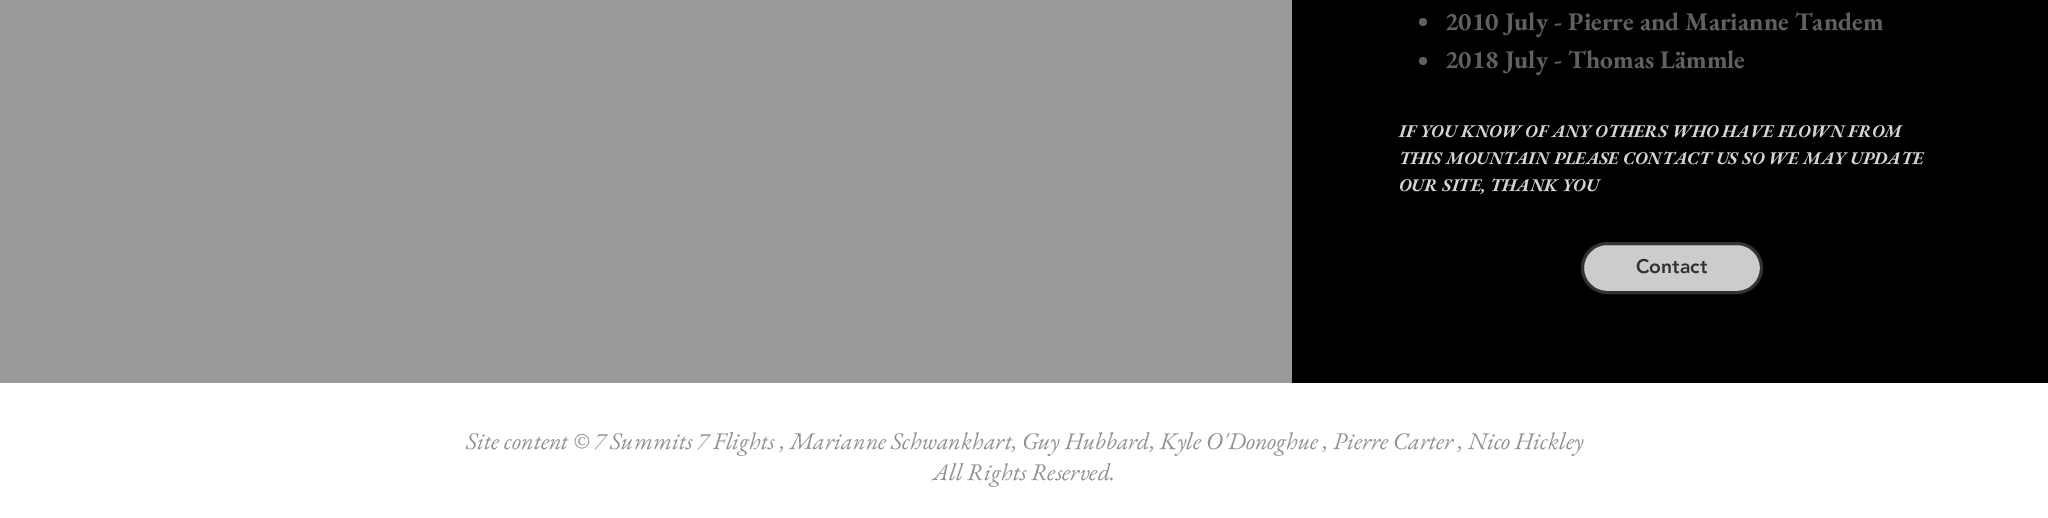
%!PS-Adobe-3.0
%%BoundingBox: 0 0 2048 518
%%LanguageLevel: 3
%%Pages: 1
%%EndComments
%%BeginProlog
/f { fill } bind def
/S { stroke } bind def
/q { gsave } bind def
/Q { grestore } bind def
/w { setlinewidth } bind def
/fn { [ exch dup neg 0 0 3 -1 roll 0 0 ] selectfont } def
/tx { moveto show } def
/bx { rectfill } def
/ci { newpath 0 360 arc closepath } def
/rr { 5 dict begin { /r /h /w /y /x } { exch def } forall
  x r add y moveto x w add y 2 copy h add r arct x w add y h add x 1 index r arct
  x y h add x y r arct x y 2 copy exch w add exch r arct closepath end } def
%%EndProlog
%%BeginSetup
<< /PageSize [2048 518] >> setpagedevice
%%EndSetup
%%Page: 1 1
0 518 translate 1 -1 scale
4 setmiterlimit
0.604 setgray
0 0 2048 518 bx
0 setgray
1292 0 756 383 bx
0.376 setgray
1423 22 4 ci f
/EBGaramond-Bold 25.5 fn
(2010 July - Pierre and Marianne Tandem) 1445 30 tx
1423 61 4 ci f
(2018 July - Thomas Lämmle) 1445 68 tx
/EBGaramond-BoldItalic 18 fn
0.831 setgray
(IF YOU KNOW OF ANY OTHERS WHO HAVE FLOWN FROM) 1399 137 tx
(THIS MOUNTAIN PLEASE CONTACT US SO WE MAY UPDATE) 1399 164 tx
(OUR SITE, THANK YOU) 1399 191 tx
0.8 setgray
1582.5 243.5 179 49 24.5 rr q f Q
0.196 setgray
3 w
S
/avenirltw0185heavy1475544-Black 19.5 fn
(Contact) 1636 273 tx
1 setgray
0 383 2048 135 bx
/EBGaramond-Italic 24 fn
0.565 setgray
(Site content © 7 Summits 7 Flights , Marianne Schwankhart, Guy Hubbard, Kyle O'Donoghue , Pierre Carter , Nico Hickley) 466 449 tx
(All Rights Reserved.) 933 480 tx
showpage
%%EOF
